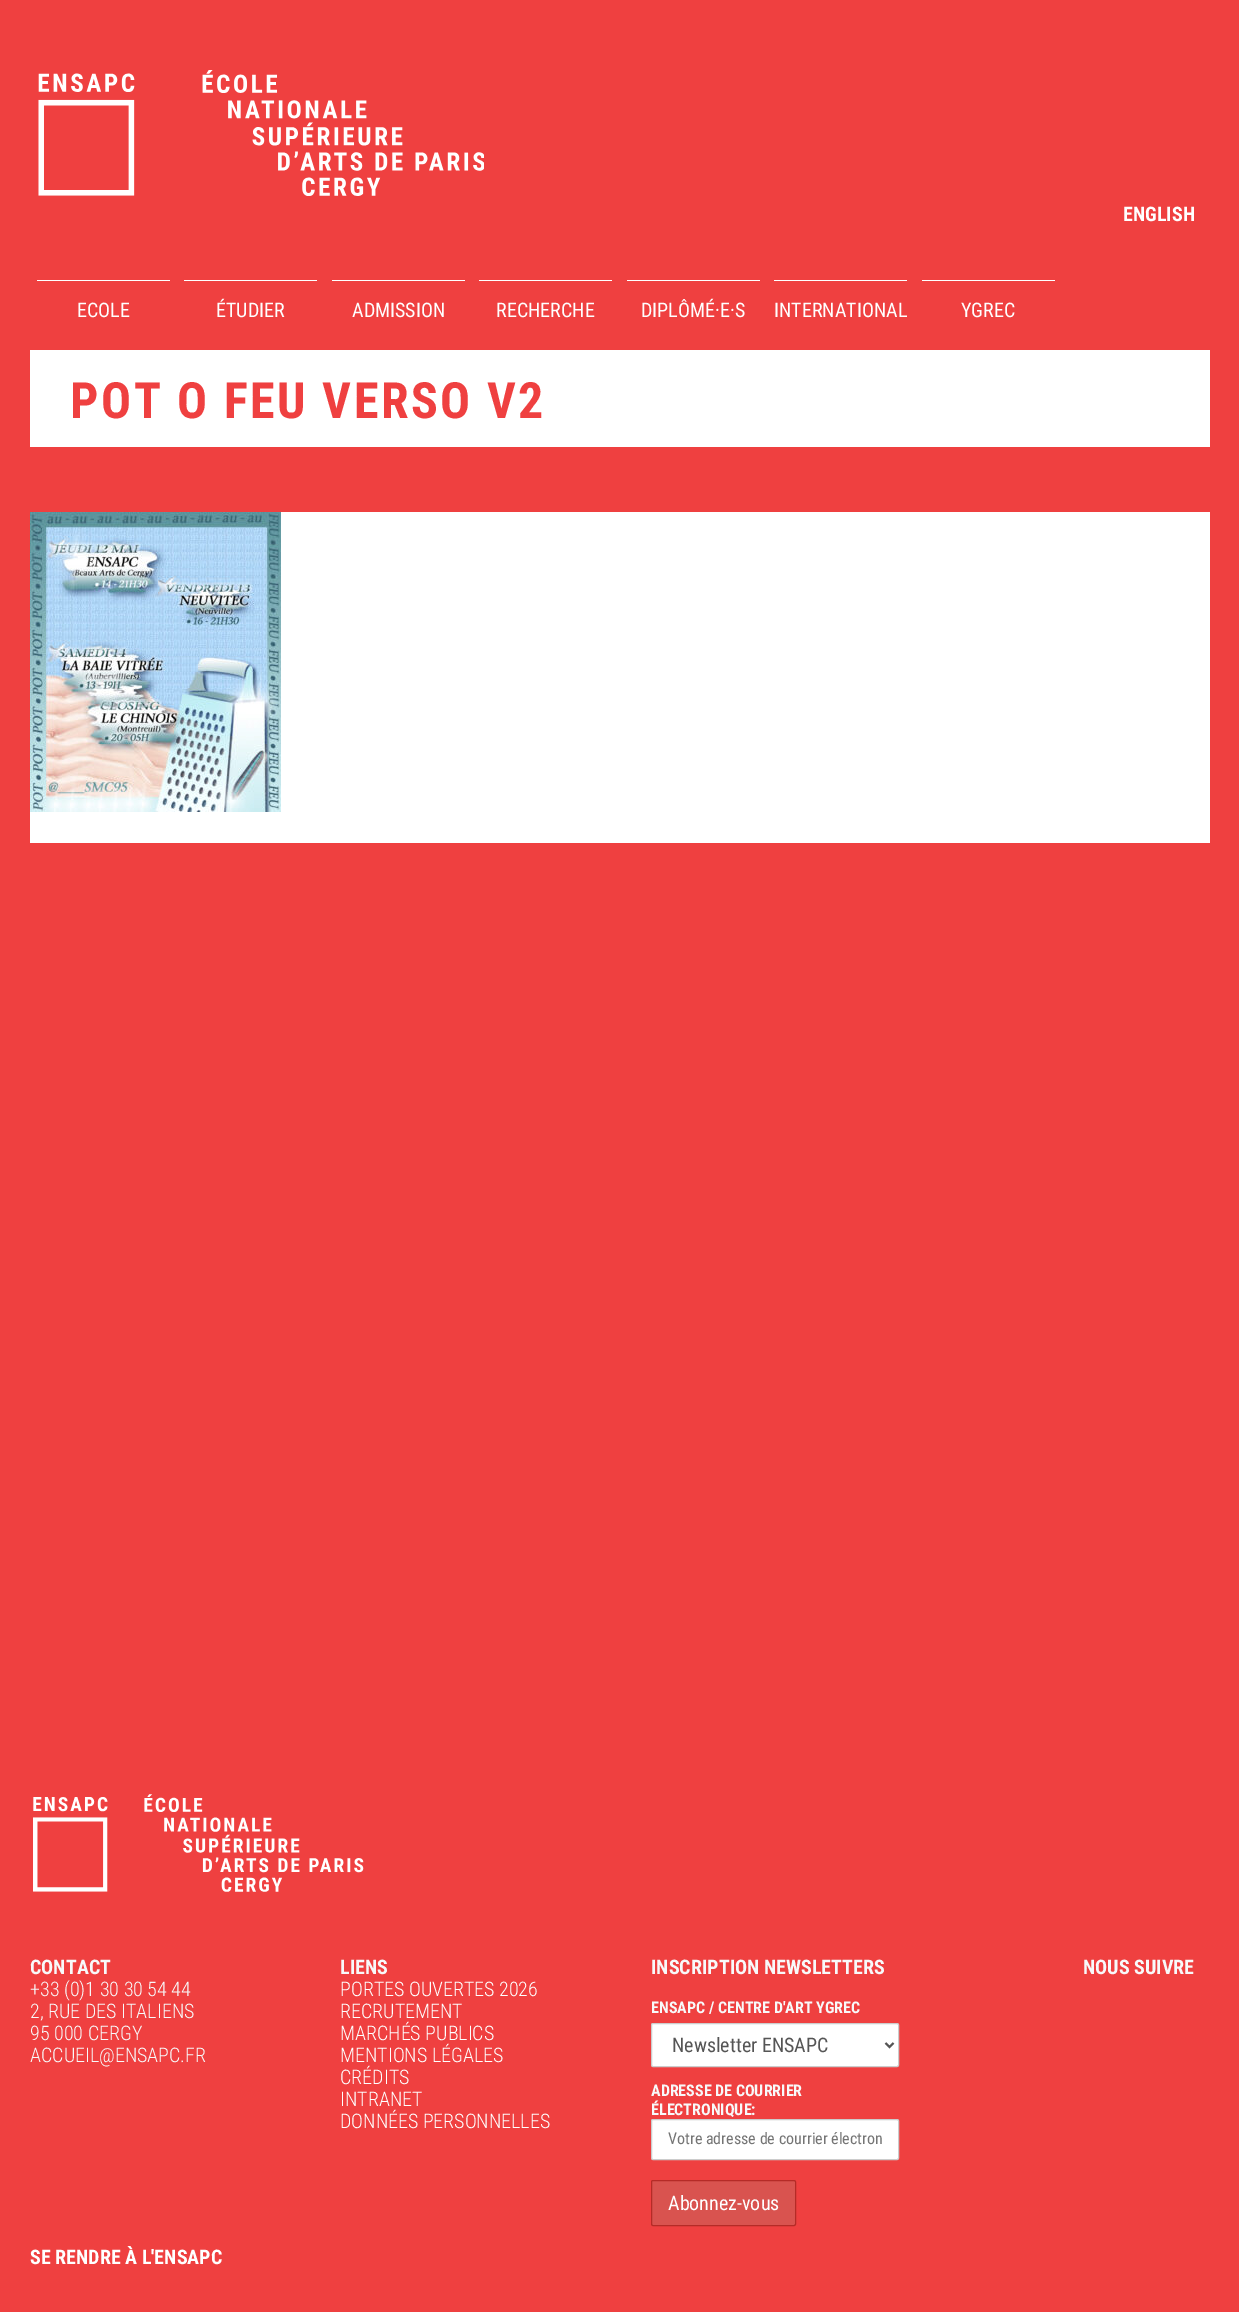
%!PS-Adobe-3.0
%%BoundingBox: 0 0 1239 2312
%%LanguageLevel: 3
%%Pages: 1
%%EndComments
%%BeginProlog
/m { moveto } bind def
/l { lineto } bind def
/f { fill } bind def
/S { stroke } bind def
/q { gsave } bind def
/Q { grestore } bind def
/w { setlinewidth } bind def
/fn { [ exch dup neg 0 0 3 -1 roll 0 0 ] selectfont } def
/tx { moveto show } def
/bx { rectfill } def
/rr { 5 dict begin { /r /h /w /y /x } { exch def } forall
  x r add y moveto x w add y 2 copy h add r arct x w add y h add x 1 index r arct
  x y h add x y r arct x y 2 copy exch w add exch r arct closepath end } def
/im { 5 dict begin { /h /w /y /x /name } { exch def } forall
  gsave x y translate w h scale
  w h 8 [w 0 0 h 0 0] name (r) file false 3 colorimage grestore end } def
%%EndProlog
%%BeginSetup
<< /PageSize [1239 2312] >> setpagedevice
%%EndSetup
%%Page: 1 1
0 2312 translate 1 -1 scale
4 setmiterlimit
0.937 0.251 0.251 setrgbcolor
0 0 1239 2312 bx
(image0.raw) 38 70 446 126 im
/RobotoCondensed-Bold 20 fn
1 setgray
(ENGLISH) 1123 221 tx
37 280 133 1 bx
/RobotoCondensed-Regular 20 fn
(ECOLE) 77 317 tx
184 280 133 1 bx
(ÉTUDIER) 216 317 tx
332 280 133 1 bx
(ADMISSION) 352 317 tx
479 280 133 1 bx
(RECHERCHE) 496 317 tx
627 280 133 1 bx
(DIPLÔMÉ·E·S) 641 317 tx
774 280 133 1 bx
(INTERNATIONAL) 774 317 tx
922 280 133 1 bx
(YGREC) 961 317 tx
30 350 1180 97 bx
/RobotoCondensed-Bold 50 fn
0.937 0.251 0.251 setrgbcolor
70 418 m 2.5 0 (POT O FEU VERSO V2) ashow
1 setgray
30 512 1180 331 bx
(image1.raw) 30 512 251 300 im
(image2.raw) 33 1794 331 98 im
/RobotoCondensed-Bold 20 fn
0.973 0.976 0.98 setrgbcolor
(CONTACT) 30 1974 tx
/RobotoCondensed-Light 20 fn
(+33 \(0\)1 30 30 54 44) 30 1996 tx
(2, RUE DES ITALIENS) 30 2018 tx
(95 000 CERGY) 30 2040 tx
(ACCUEIL@ENSAPC.FR) 30 2062 tx
/RobotoCondensed-Bold 20 fn
(LIENS) 340 1974 tx
/RobotoCondensed-Light 20 fn
1 setgray
(PORTES OUVERTES 2026) 340 1996 tx
(RECRUTEMENT) 340 2018 tx
(MARCHÉS PUBLICS) 340 2040 tx
(MENTIONS LÉGALES) 340 2062 tx
(CRÉDITS) 340 2084 tx
(INTRANET) 340 2106 tx
(DONNÉES PERSONNELLES) 340 2128 tx
/RobotoCondensed-Bold 20 fn
0.973 0.976 0.98 setrgbcolor
(INSCRIPTION NEWSLETTERS) 651 1974 tx
/RobotoCondensed-Bold 16 fn
(ENSAPC / CENTRE D'ART YGREC) 651 2013 tx
1 setgray
651.5 2023.5 247 43 1.5 rr q f Q
0.8 setgray
S
0.333 setgray
2 w
885.5 2043 m 889.5 2047 l 893.5 2043 l S
/RobotoCondensed-Regular 20 fn
(Newsletter ENSAPC) 672 2052 tx
/RobotoCondensed-Bold 16 fn
0.973 0.976 0.98 setrgbcolor
(ADRESSE DE COURRIER) 651 2096 tx
(ÉLECTRONIQUE:) 651 2115 tx
1 setgray
651.5 2119.5 247 40 1.5 rr q f Q
0.8 setgray
1 w
S
/RobotoCondensed-Regular 16 fn
0.459 setgray
(Votre adresse de courrier électron) 668 2144 tx
0.851 0.325 0.31 setrgbcolor
651.5 2180.5 144 45 1.5 rr q f Q
0.71 0.169 0.153 setrgbcolor
S
/RobotoCondensed-Regular 20 fn
1 setgray
(Abonnez-vous) 668 2210 tx
/RobotoCondensed-Bold 20 fn
0.973 0.976 0.98 setrgbcolor
(NOUS SUIVRE) 1083 1974 tx
1 setgray
(SE RENDRE À L'ENSAPC) 30 2264 tx
showpage
%%EOF
